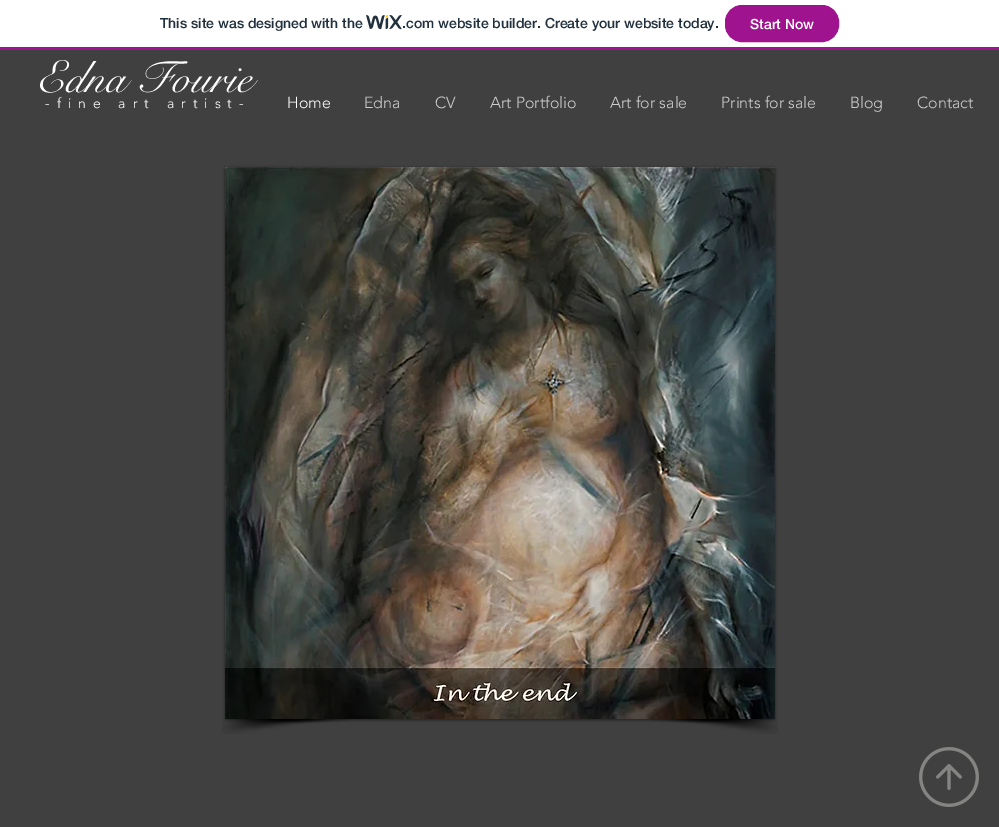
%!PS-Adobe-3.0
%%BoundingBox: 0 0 999 827
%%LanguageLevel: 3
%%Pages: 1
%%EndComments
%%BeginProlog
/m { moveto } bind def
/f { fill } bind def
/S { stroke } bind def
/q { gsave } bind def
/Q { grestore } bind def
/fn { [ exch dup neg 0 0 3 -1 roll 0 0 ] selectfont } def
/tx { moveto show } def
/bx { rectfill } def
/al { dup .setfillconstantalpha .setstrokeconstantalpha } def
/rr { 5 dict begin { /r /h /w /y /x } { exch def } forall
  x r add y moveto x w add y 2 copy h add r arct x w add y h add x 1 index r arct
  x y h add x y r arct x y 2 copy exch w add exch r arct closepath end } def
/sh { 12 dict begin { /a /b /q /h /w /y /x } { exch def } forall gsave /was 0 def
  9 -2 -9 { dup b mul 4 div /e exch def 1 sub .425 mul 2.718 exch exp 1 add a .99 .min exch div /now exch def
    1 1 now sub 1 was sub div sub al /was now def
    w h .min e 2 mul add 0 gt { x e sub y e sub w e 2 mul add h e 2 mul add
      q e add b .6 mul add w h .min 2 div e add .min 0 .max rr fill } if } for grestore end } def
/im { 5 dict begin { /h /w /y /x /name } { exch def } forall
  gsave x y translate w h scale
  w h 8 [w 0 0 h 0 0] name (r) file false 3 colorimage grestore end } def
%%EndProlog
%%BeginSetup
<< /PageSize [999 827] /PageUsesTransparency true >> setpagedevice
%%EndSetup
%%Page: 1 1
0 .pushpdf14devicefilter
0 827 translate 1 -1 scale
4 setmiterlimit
1 setgray
0 0 999 827 bx
0.627 0.075 0.557 setrgbcolor
0 47 999 3 bx
/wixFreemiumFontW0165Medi-Medium 14 fn
0.125 0.188 0.235 setrgbcolor
(This site was designed with the) 160 28 tx
(image0.raw) 366 15 36 15 im
(.com website builder. Create your website today.) 402 28 tx
0.627 0.075 0.557 setrgbcolor
725.5 5.5 113 36 16.5 rr q f Q
S
1 setgray
(Start Now) 750 29 tx
0.251 setgray
0 50 999 777 bx
/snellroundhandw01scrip-Regular 45 fn
1 setgray
(Edna Fourie) 36 92 tx
/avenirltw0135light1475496-Light 14 fn
45 108 m 7 0 (-fine art artist-) ashow
/avenirltw0135light1475496-Light 16 fn
(Home) 287 108 tx
0.8 setgray
(Edna) 364 108 tx
(CV) 435 108 tx
(Art Portfolio) 490 108 tx
(Art for sale) 610 108 tx
(Prints for sale) 721 108 tx
(Blog) 850 108 tx
(Contact) 917 108 tx
0 setgray
225 168 550 552 0 1.5 0.5 sh
(image1.raw) 225 167 550 552 im
(image2.raw) 222 719 128 15 im
(image3.raw) 650 719 128 15 im
(image4.raw) 919 747 60 60 im
.poppdf14devicefilter showpage
%%EOF
